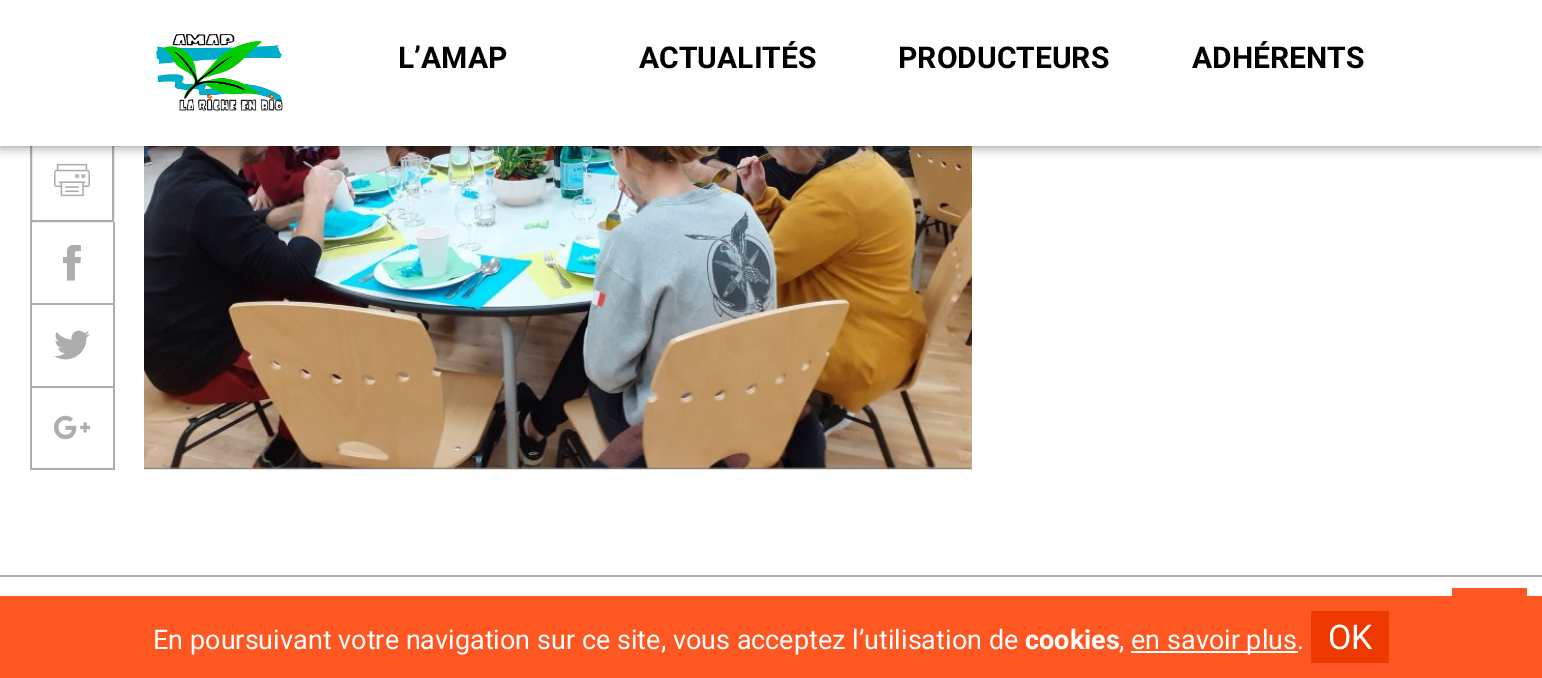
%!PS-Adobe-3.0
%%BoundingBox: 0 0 1542 678
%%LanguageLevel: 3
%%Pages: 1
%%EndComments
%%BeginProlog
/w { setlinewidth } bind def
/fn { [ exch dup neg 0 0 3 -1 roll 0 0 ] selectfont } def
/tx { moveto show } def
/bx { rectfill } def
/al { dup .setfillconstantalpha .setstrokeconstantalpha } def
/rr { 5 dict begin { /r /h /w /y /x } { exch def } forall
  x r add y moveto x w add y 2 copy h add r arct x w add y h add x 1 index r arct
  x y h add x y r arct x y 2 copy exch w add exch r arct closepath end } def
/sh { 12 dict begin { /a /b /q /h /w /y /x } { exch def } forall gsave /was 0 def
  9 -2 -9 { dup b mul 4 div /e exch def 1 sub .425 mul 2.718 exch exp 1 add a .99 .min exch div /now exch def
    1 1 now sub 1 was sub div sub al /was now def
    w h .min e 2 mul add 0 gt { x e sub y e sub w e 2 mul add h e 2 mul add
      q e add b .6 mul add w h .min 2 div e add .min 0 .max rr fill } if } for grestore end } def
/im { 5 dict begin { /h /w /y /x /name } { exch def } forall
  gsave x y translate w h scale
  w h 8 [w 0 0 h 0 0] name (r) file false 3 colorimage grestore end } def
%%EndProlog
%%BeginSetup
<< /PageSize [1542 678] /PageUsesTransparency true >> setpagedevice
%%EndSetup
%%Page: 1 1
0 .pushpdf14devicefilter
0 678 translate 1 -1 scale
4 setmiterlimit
1 setgray
0 0 1542 678 bx
0.678 setgray
2 w
31 139 82 82 rectstroke
(image1.raw) 54 163 36 34 im
(image5.raw) 144 146 828 324 im
0 setgray
0 0 1542 146 0 6 0.5 sh
1 setgray
0 0 1542 146 bx
(image0.raw) 156 34 127 77 im
/Roboto-Bold 30 fn
0 setgray
(L’AMAP) 398 68 tx
(ACTUALITÉS) 639 68 tx
(PRODUCTEURS) 898 68 tx
(ADHÉRENTS) 1192 68 tx
0.678 setgray
113 222 2 165 bx
30 303 84 2 bx
30 222 2 83 bx
(image2.raw) 63 245 18 36 im
30 386 84 2 bx
30 305 2 82 bx
(image3.raw) 54 330 36 30 im
113 387 2 83 bx
30 468 84 2 bx
30 387 2 83 bx
(image4.raw) 54 415 36 25 im
0 575 1542 2 bx
1 0.341 0.133 setrgbcolor
1452 588 75 8 bx
0 596 1542 82 bx
/Roboto-Regular 27 fn
1 setgray
(En poursuivant votre navigation sur ce site, vous acceptez l’utilisation de) 153 649 tx
/Roboto-Bold 27 fn
(cookies) 1025 649 tx
/Roboto-Regular 27 fn
(,) 1119 649 tx
1131 651 167 2 bx
(en savoir plus.) 1131 649 tx
0.933 0.224 0 setrgbcolor
1311 611 78 52 bx
/Roboto-Regular 34 fn
1 setgray
(OK) 1328 649 tx
.poppdf14devicefilter showpage
%%EOF
